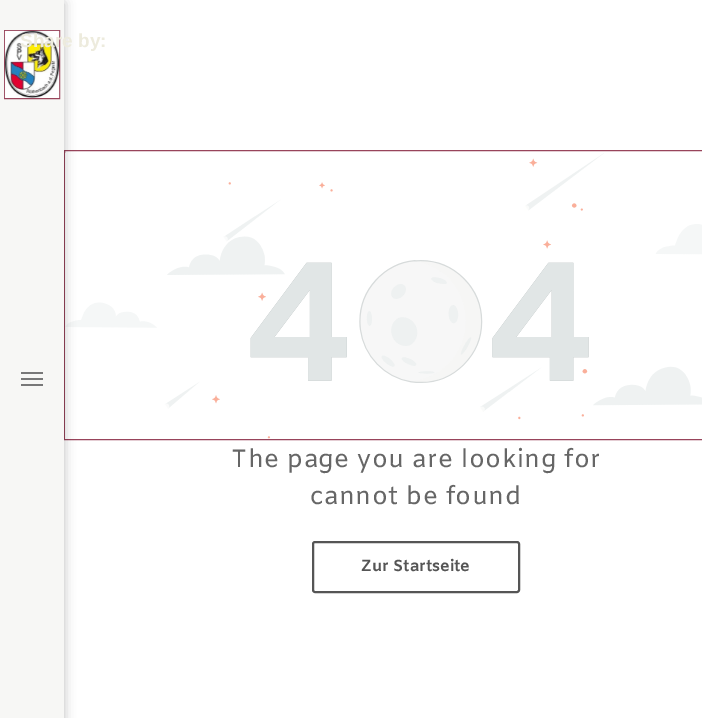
%!PS-Adobe-3.0
%%BoundingBox: 0 0 702 718
%%LanguageLevel: 3
%%Pages: 1
%%EndComments
%%BeginProlog
/m { moveto } bind def
/S { stroke } bind def
/w { setlinewidth } bind def
/fn { [ exch dup neg 0 0 3 -1 roll 0 0 ] selectfont } def
/tx { moveto show } def
/bx { rectfill } def
/al { dup .setfillconstantalpha .setstrokeconstantalpha } def
/rr { 5 dict begin { /r /h /w /y /x } { exch def } forall
  x r add y moveto x w add y 2 copy h add r arct x w add y h add x 1 index r arct
  x y h add x y r arct x y 2 copy exch w add exch r arct closepath end } def
/sh { 12 dict begin { /a /b /q /h /w /y /x } { exch def } forall gsave /was 0 def
  9 -2 -9 { dup b mul 4 div /e exch def 1 sub .425 mul 2.718 exch exp 1 add a .99 .min exch div /now exch def
    1 1 now sub 1 was sub div sub al /was now def
    w h .min e 2 mul add 0 gt { x e sub y e sub w e 2 mul add h e 2 mul add
      q e add b .6 mul add w h .min 2 div e add .min 0 .max rr fill } if } for grestore end } def
/im { 5 dict begin { /h /w /y /x /name } { exch def } forall
  gsave x y translate w h scale
  w h 8 [w 0 0 h 0 0] name (r) file false 3 colorimage grestore end } def
%%EndProlog
%%BeginSetup
<< /PageSize [702 718] /PageUsesTransparency true >> setpagedevice
%%EndSetup
%%Page: 1 1
0 .pushpdf14devicefilter
0 718 translate 1 -1 scale
4 setmiterlimit
1 setgray
0 0 702 718 bx
0.596 0.267 0.357 setrgbcolor
64.5 150.5 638 289 rectstroke
(image1.raw) 65 153 637 286 im
0 setgray
0 3 64 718 0 5.5 0.25 sh
0.969 0.969 0.961 setrgbcolor
0 0 64 718 bx
0.596 0.267 0.357 setrgbcolor
4.5 30.5 55 68 rectstroke
(image0.raw) 4 30 56 68 im
/LiberationSans-Bold 19 fn
0.929 0.922 0.867 setrgbcolor
(Share by:) 20 47 tx
0.471 setgray
21 372 22 2 bx
21 378 22 2 bx
21 384 22 2 bx
/Amiko-Regular 25 fn
0.4 setgray
231 467 m 0.5 0 (The page you are looking for) ashow
310 504 m 0.5 0 (cannot be found) ashow
0.333 setgray
2 w
313 542 206 50 2 rr S
/Amiko-Bold 16 fn
(Zur Startseite) 361 571 tx
.poppdf14devicefilter showpage
%%EOF
